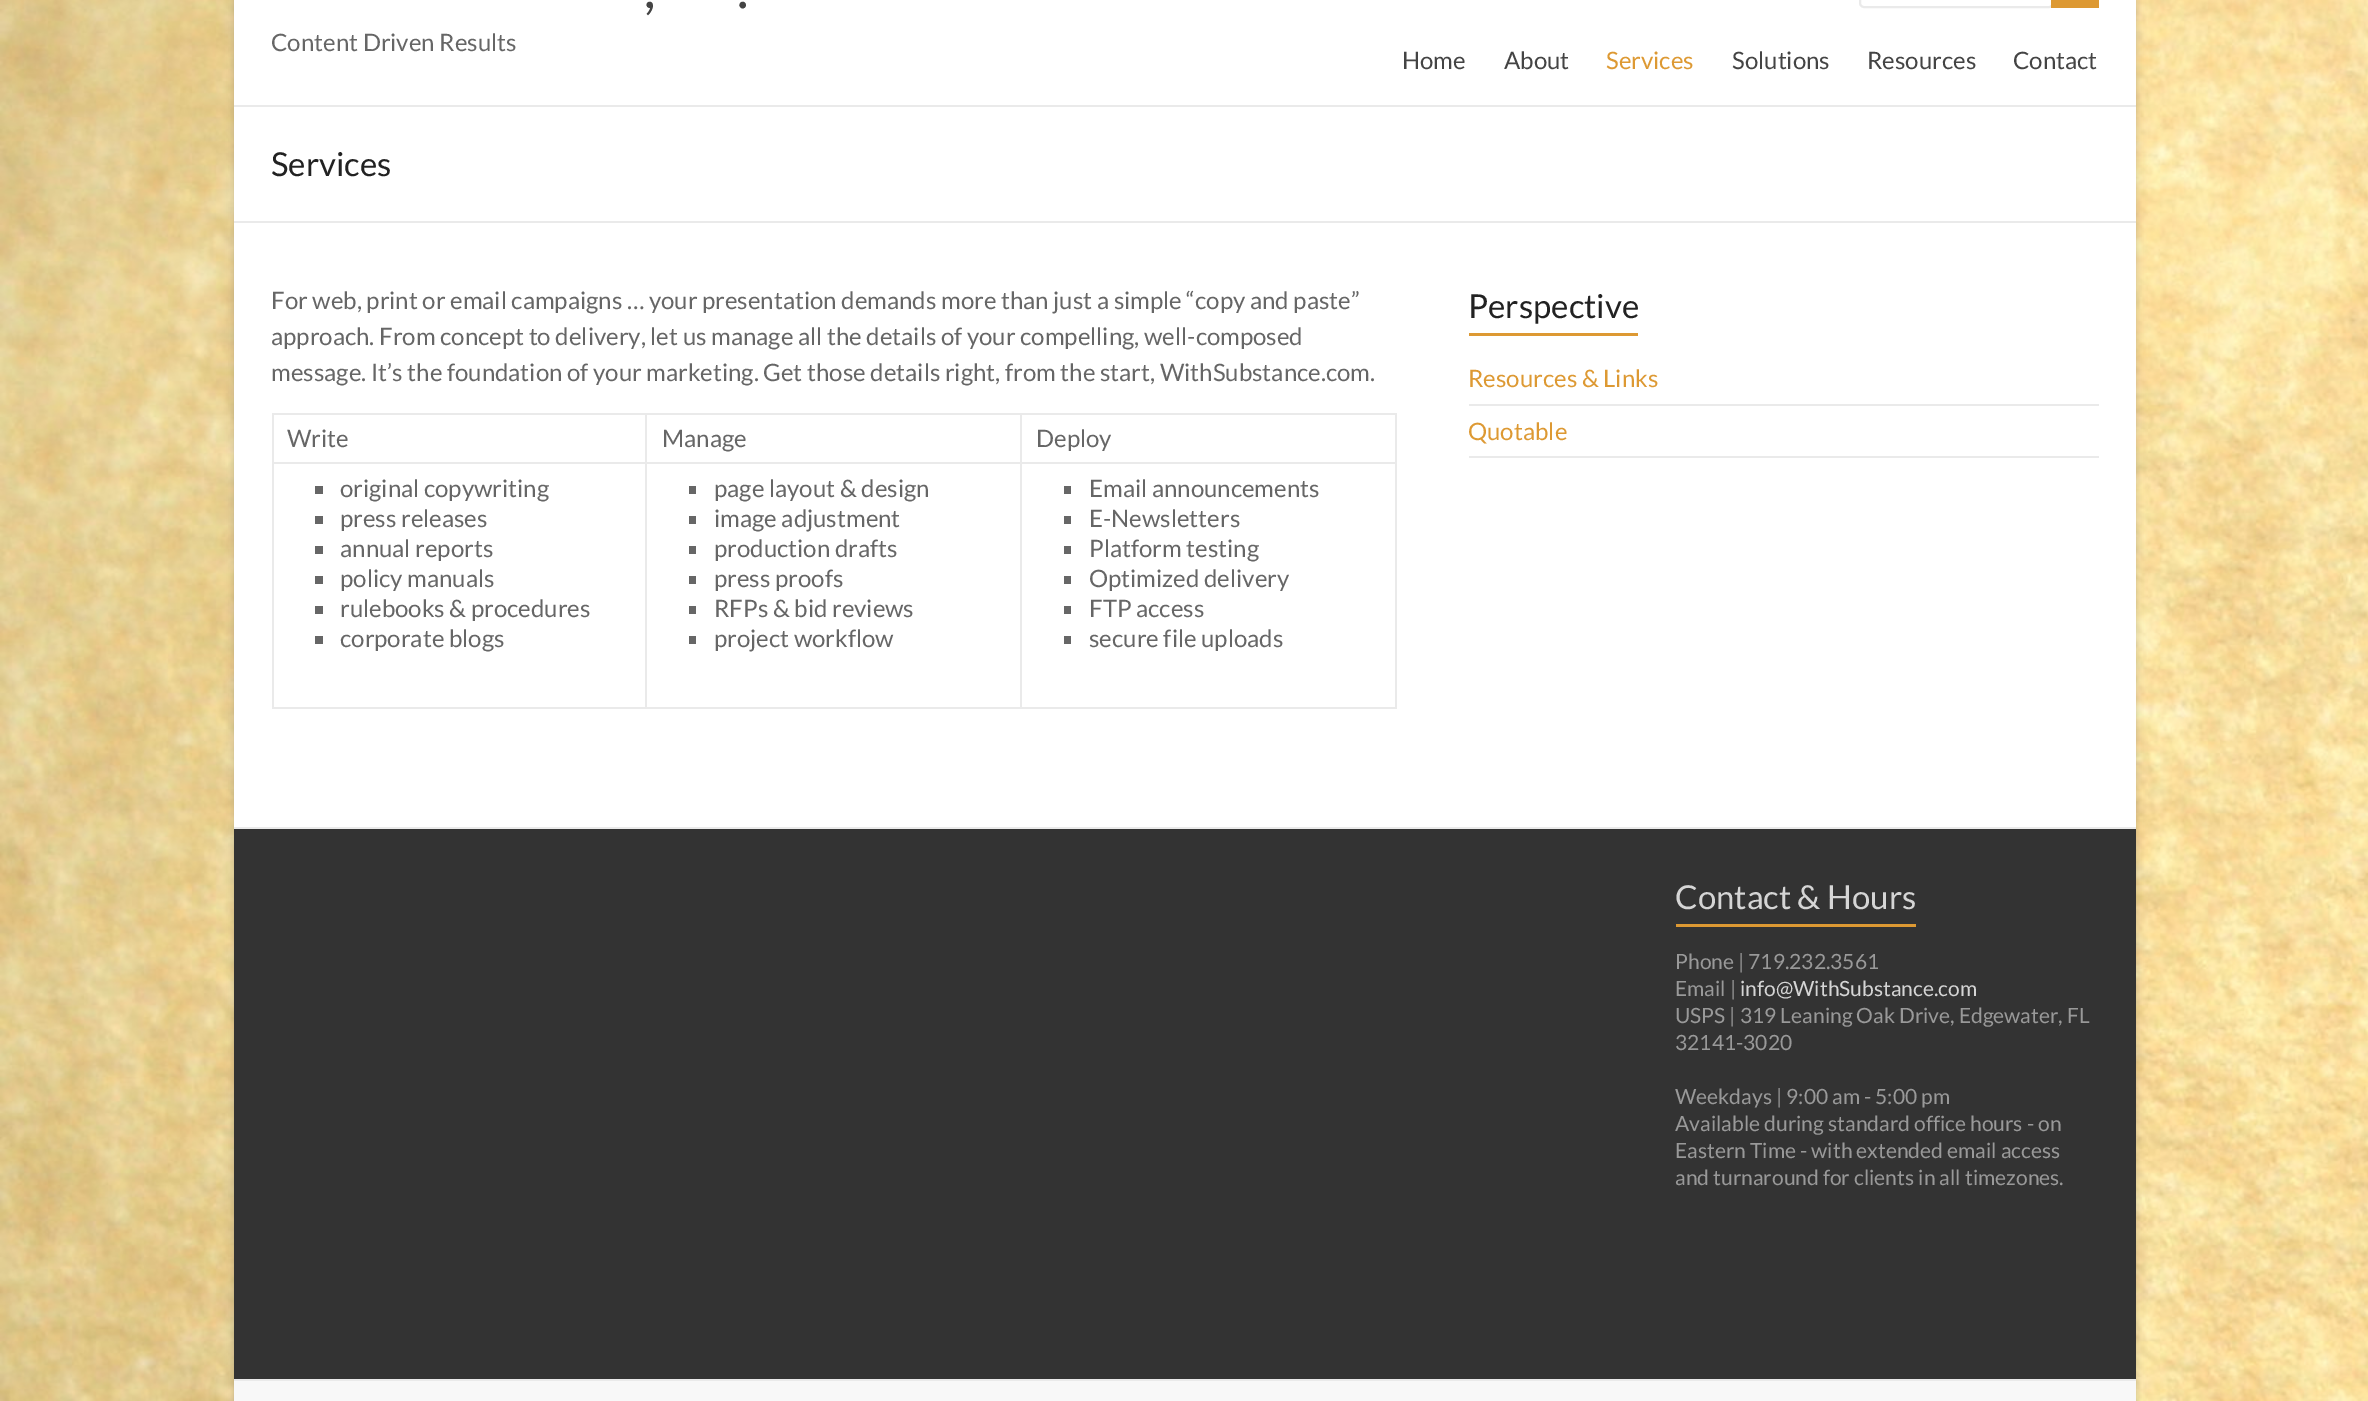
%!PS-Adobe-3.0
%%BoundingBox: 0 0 2368 1401
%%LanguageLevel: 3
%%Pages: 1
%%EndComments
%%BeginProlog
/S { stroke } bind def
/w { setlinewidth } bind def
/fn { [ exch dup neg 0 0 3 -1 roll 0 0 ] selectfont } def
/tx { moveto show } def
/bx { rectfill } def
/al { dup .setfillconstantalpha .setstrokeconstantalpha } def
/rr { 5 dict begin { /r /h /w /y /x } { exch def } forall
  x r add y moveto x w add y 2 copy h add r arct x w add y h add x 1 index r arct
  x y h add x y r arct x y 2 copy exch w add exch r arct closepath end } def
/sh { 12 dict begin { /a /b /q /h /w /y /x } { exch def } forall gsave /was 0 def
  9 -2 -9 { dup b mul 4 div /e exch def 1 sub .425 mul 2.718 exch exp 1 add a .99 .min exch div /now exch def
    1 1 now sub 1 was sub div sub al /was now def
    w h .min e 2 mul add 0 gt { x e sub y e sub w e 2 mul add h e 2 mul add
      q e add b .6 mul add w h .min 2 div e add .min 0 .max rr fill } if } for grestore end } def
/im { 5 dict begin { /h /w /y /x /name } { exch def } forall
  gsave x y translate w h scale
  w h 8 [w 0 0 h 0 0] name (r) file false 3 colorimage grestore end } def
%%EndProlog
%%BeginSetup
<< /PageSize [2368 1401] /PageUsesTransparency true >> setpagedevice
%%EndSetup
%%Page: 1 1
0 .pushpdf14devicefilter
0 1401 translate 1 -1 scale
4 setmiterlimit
1 setgray
0 0 2368 1401 bx
(image0.raw) 0 0 2368 1401 im
0.392 setgray
234 -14 1902 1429 0 4.5 0.3 sh
1 setgray
234 0 1902 827 bx
0.918 setgray
234 105 1902 2 bx
/Lato-Regular 54 fn
0.267 setgray
(,) 644 8 tx
(.) 737 8 tx
/Lato-Regular 24 fn
0.4 setgray
(Content Driven Results) 271 51 tx
0.918 setgray
2 w
1860 -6 193 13 4 rr S
0.867 0.6 0.2 setrgbcolor
2051 0 48 8 bx
0.267 setgray
(Home) 1402 69 tx
(About) 1504 69 tx
0.867 0.6 0.2 setrgbcolor
(Services) 1606 69 tx
0.267 setgray
(Solutions) 1732 69 tx
(Resources) 1867 69 tx
(Contact) 2013 69 tx
0.918 setgray
234 221 1902 2 bx
/Lato-Regular 33 fn
0.133 setgray
(Services) 271 176 tx
/Lato-Regular 24 fn
0.4 setgray
(For web, print or email campaigns … your presentation demands more than just a simple “copy and paste”) 271 309 tx
(approach. From concept to delivery, let us manage all the details of your compelling, well-composed) 271 345 tx
(message. It’s the foundation of your marketing. Get those details right, from the start, WithSubstance.com.) 271 381 tx
0.918 setgray
1020 413 377 2 bx
1020 462 377 2 bx
1395 462 2 246 bx
1020 707 377 2 bx
1020 462 2 246 bx
645 462 377 2 bx
1020 413 2 51 bx
645 413 377 2 bx
645 707 377 2 bx
645 462 2 246 bx
272 462 375 2 bx
645 413 2 51 bx
272 413 375 2 bx
272 707 375 2 bx
272 462 2 246 bx
272 413 2 51 bx
0.4 setgray
(Write) 287 447 tx
(Manage) 662 447 tx
0.918 setgray
1395 413 2 51 bx
0.4 setgray
(Deploy) 1036 447 tx
315 486 8 8 bx
(original copywriting) 340 497 tx
315 516 8 8 bx
(press releases) 340 527 tx
315 546 8 8 bx
(annual reports) 340 557 tx
315 576 8 8 bx
(policy manuals) 340 587 tx
315 606 8 8 bx
(rulebooks & procedures) 340 617 tx
315 636 8 8 bx
(corporate blogs) 340 647 tx
689 486 7 8 bx
(page layout & design) 714 497 tx
689 516 7 8 bx
(image adjustment) 714 527 tx
689 546 7 8 bx
(production drafts) 714 557 tx
689 576 7 8 bx
(press proofs) 714 587 tx
689 606 7 8 bx
(RFPs & bid reviews) 714 617 tx
689 636 7 8 bx
(project workflow) 714 647 tx
1064 486 7 8 bx
(Email announcements) 1089 497 tx
1064 516 7 8 bx
(E-Newsletters) 1089 527 tx
1064 546 7 8 bx
(Platform testing) 1089 557 tx
1064 576 7 8 bx
(Optimized delivery) 1089 587 tx
1064 606 7 8 bx
(FTP access) 1089 617 tx
1064 636 7 8 bx
(secure file uploads) 1089 647 tx
/Lato-Regular 33 fn
0.133 setgray
(Perspective) 1468 318 tx
0.867 0.6 0.2 setrgbcolor
1469 333 169 3 bx
0.918 setgray
1469 404 630 2 bx
/Lato-Regular 24 fn
0.867 0.6 0.2 setrgbcolor
(Resources & Links) 1468 387 tx
0.918 setgray
1469 456 630 2 bx
0.867 0.6 0.2 setrgbcolor
(Quotable) 1468 440 tx
0.2 setgray
234 829 1902 550 bx
0.918 setgray
234 827 1902 2 bx
/Lato-Regular 33 fn
0.835 setgray
(Contact & Hours) 1675 909 tx
0.867 0.6 0.2 setrgbcolor
1676 924 240 3 bx
/Lato-Regular 21 fn
0.6 setgray
(Phone | 719.232.3561) 1675 969 tx
(Email |) 1675 996 tx
0.835 setgray
(info@WithSubstance.com) 1740 996 tx
0.6 setgray
(USPS | 319 Leaning Oak Drive, Edgewater, FL) 1675 1023 tx
(32141-3020) 1675 1050 tx
(Weekdays | 9:00 am - 5:00 pm) 1675 1104 tx
(Available during standard office hours - on) 1675 1131 tx
(Eastern Time - with extended email access) 1675 1158 tx
(and turnaround for clients in all timezones.) 1675 1185 tx
0.973 setgray
234 1381 1902 20 bx
0.918 setgray
234 1379 1902 2 bx
.poppdf14devicefilter showpage
%%EOF
